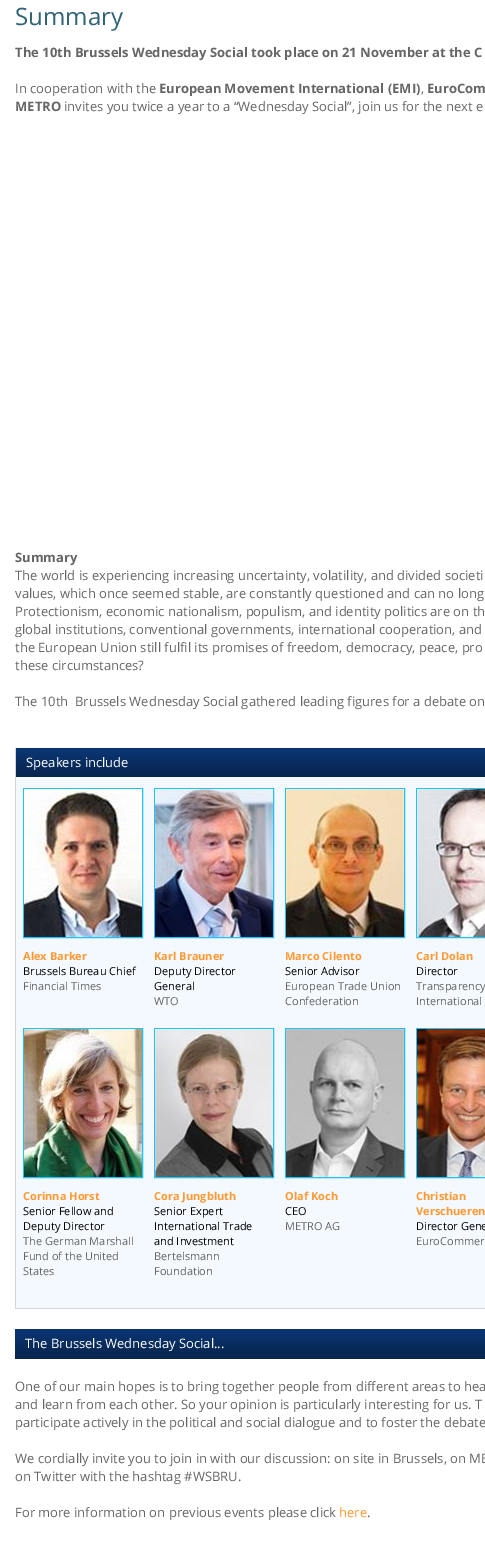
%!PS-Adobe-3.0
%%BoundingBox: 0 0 485 1556
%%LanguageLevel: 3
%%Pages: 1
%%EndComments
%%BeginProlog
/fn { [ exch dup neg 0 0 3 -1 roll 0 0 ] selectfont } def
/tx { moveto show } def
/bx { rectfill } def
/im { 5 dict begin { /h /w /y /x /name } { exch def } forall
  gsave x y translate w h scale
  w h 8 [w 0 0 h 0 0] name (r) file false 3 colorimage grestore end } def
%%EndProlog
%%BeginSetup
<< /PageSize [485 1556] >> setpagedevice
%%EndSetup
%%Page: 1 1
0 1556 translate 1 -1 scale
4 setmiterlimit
1 setgray
0 0 485 1556 bx
/OpenSans-Regular 24 fn
0.192 0.392 0.451 setrgbcolor
(Summary) 15 25 tx
/OpenSans-Bold 13 fn
0.4 setgray
(The 10th Brussels Wednesday Social took place on 21 November at the C) 15 57 tx
/OpenSans-Regular 13 fn
(In cooperation with the) 15 93 tx
/OpenSans-Bold 13 fn
(European Movement International \(EMI\)) 159 93 tx
/OpenSans-Regular 13 fn
(,) 421 93 tx
/OpenSans-Bold 13 fn
(EuroCom) 427 93 tx
(METRO) 15 111 tx
/OpenSans-Regular 13 fn
(invites you twice a year to a “Wednesday Social”, join us for the next e) 64 111 tx
/OpenSans-Bold 13 fn
(Summary) 15 562 tx
/OpenSans-Regular 13 fn
(The world is experiencing increasing uncertainty, volatility, and divided societi) 15 580 tx
(values, which once seemed stable, are constantly questioned and can no long) 15 598 tx
(Protectionism, economic nationalism, populism, and identity politics are on th) 15 616 tx
(global institutions, conventional governments, international cooperation, and) 15 634 tx
(the European Union still fulfil its promises of freedom, democracy, peace, pro) 15 652 tx
(these circumstances?) 15 670 tx
(The 10th  Brussels Wednesday Social gathered leading figures for a debate on) 15 706 tx
0.957 0.976 1 setrgbcolor
16 777 469 531 bx
0.835 setgray
15 1308 470 1 bx
15 748 1 561 bx
0.039 0.204 0.435 setrgbcolor
16 748 469 29 bx
(image0.raw) 16 754 469 23 im
1 setgray
(Speakers include) 26 767 tx
0.102 0.769 1 setrgbcolor
23.5 788.5 119 149 rectstroke
(image1.raw) 24 789 118 148 im
/OpenSans-Bold 11 fn
1 0.6 0.2 setrgbcolor
(Alex Barker) 23 960 tx
/OpenSans-Regular 11 fn
0 setgray
(Brussels Bureau Chief) 23 975 tx
0.4 setgray
(Financial Times) 23 990 tx
0.102 0.769 1 setrgbcolor
154.5 788.5 119 149 rectstroke
(image2.raw) 155 789 118 148 im
/OpenSans-Bold 11 fn
1 0.6 0.2 setrgbcolor
(Karl Brauner) 154 960 tx
/OpenSans-Regular 11 fn
0 setgray
(Deputy Director) 154 975 tx
(General) 154 990 tx
0.4 setgray
(WTO) 154 1005 tx
0.102 0.769 1 setrgbcolor
285.5 788.5 119 149 rectstroke
(image3.raw) 286 789 118 148 im
/OpenSans-Bold 11 fn
1 0.6 0.2 setrgbcolor
(Marco Cilento) 285 960 tx
/OpenSans-Regular 11 fn
0 setgray
(Senior Advisor) 285 975 tx
0.4 setgray
(European Trade Union) 285 990 tx
(Confederation) 285 1005 tx
0.102 0.769 1 setrgbcolor
416.5 788.5 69 149 rectstroke
(image4.raw) 417 789 68 148 im
/OpenSans-Bold 11 fn
1 0.6 0.2 setrgbcolor
(Carl Dolan) 416 960 tx
/OpenSans-Regular 11 fn
0 setgray
(Director) 416 975 tx
0.4 setgray
(Transparency) 416 990 tx
(International) 416 1005 tx
0.102 0.769 1 setrgbcolor
23.5 1028.5 119 149 rectstroke
(image5.raw) 24 1029 118 148 im
/OpenSans-Bold 11 fn
1 0.6 0.2 setrgbcolor
(Corinna Horst) 23 1200 tx
/OpenSans-Regular 11 fn
0 setgray
(Senior Fellow and) 23 1215 tx
(Deputy Director) 23 1230 tx
0.4 setgray
(The German Marshall) 23 1245 tx
(Fund of the United) 23 1260 tx
(States) 23 1275 tx
0.102 0.769 1 setrgbcolor
154.5 1028.5 119 149 rectstroke
(image6.raw) 155 1029 118 148 im
/OpenSans-Bold 11 fn
1 0.6 0.2 setrgbcolor
(Cora Jungbluth) 154 1200 tx
/OpenSans-Regular 11 fn
0 setgray
(Senior Expert) 154 1215 tx
(International Trade) 154 1230 tx
(and Investment) 154 1245 tx
0.4 setgray
(Bertelsmann) 154 1260 tx
(Foundation) 154 1275 tx
0.102 0.769 1 setrgbcolor
285.5 1028.5 119 149 rectstroke
(image7.raw) 286 1029 118 148 im
/OpenSans-Bold 11 fn
1 0.6 0.2 setrgbcolor
(Olaf Koch) 285 1200 tx
/OpenSans-Regular 11 fn
0 setgray
(CEO) 285 1215 tx
0.4 setgray
(METRO AG) 285 1230 tx
0.102 0.769 1 setrgbcolor
416.5 1028.5 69 149 rectstroke
(image8.raw) 417 1029 68 148 im
/OpenSans-Bold 11 fn
1 0.6 0.2 setrgbcolor
(Christian) 416 1200 tx
(Verschueren) 416 1215 tx
/OpenSans-Regular 11 fn
0 setgray
(Director Gene) 416 1230 tx
0.4 setgray
(EuroCommer) 416 1245 tx
0.039 0.204 0.435 setrgbcolor
15 1329 470 30 bx
(image9.raw) 15 1335 470 24 im
/OpenSans-Regular 13 fn
1 setgray
(The Brussels Wednesday Social...) 25 1348 tx
0.4 setgray
(One of our main hopes is to bring together people from different areas to hea) 15 1391 tx
(and learn from each other. So your opinion is particularly interesting for us. T) 15 1409 tx
(participate actively in the political and social dialogue and to foster the debate) 15 1427 tx
(We cordially invite you to join in with our discussion: on site in Brussels, on ME) 15 1463 tx
(on Twitter with the hashtag #WSBRU.) 15 1481 tx
(For more information on previous events please click) 15 1517 tx
1 0.6 0.2 setrgbcolor
(here) 339 1517 tx
0.4 setgray
(.) 367 1517 tx
showpage
%%EOF
